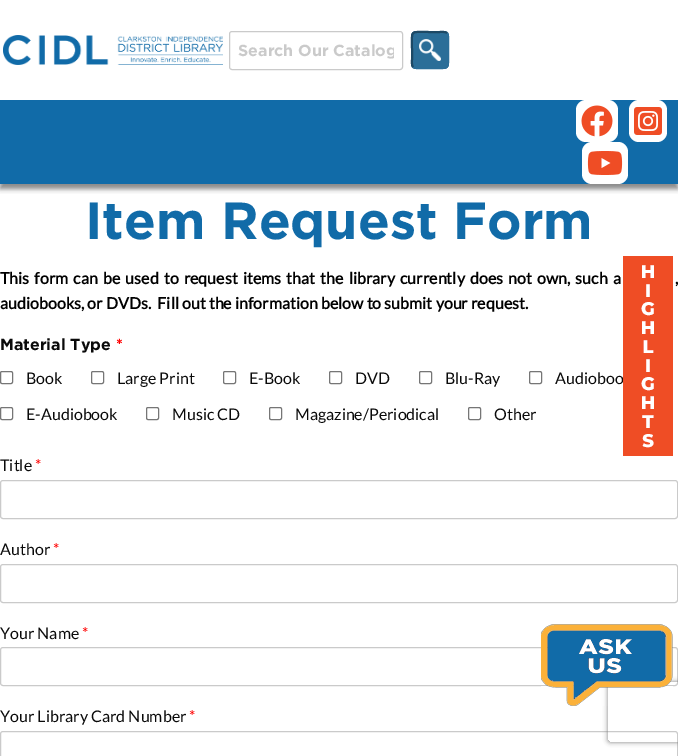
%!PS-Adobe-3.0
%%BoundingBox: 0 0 678 756
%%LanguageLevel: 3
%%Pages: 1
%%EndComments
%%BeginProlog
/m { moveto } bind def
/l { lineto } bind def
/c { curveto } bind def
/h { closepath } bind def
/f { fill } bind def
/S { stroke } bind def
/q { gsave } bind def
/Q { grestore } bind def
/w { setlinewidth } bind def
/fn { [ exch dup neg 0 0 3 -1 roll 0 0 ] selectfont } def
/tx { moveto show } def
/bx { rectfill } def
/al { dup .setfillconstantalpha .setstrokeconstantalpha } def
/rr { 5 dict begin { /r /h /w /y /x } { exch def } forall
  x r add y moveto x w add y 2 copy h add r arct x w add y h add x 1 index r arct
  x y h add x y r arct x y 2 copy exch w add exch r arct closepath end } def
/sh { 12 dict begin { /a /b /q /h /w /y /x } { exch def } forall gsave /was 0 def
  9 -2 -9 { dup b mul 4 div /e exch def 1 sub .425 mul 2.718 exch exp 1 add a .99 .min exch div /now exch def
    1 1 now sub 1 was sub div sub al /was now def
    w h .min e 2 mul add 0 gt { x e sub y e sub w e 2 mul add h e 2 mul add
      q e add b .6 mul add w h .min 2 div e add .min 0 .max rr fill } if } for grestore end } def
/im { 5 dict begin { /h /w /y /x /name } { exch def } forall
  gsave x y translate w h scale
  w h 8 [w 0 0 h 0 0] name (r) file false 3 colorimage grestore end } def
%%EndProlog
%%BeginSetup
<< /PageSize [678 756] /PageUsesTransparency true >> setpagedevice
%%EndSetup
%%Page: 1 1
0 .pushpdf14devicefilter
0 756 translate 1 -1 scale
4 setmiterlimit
1 setgray
0 0 678 756 bx
q
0 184 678 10 rectclip
0.533 setgray
0 5 678 184 0 2.5 1 sh
Q
(image0.raw) 3 35 220 30 im
0.792 setgray
229.5 31.5 173 38 2.5 rr S
q
238 41 156 19 rectclip
/Gotham-Bold 16 fn
(Search Our Catalog) 238 56 tx
Q
0.169 0.431 0.596 setrgbcolor
411 31 38 38 5 rr f
2 w
447 33 m 448.5 35 448 38.5 448 40.5 c 448 50 l 448 71 451 68 430 68 c 420.5 68 l 418.5 68 415 68.5 413 67 c S
0.114 0.286 0.396 setrgbcolor
413 67 m 411.5 65 412 61.5 412 59.5 c 412 50 l 412 29 409 32 430 32 c 439.5 32 l 441.5 32 445 31.5 447 33 c S
(image1.raw) 419 39 22 22 im
0.067 0.42 0.659 setrgbcolor
0 100 678 84 bx
1 setgray
576 100 42 42 10 rr f
(image2.raw) 581 105 32 32 im
629 100 38 42 10 rr f
(image3.raw) 634 107 28 28 im
582 142 46 42 10 rr f
(image4.raw) 587 151 36 24 im
/Gotham-Bold 52 fn
0.067 0.42 0.659 setrgbcolor
(Item Request Form) 85 239 tx
/Lato-Bold 16 fn
0 setgray
0 284 m 2 0 32 (This form can be used to request items that the library currently does not own, such a) widthshow
675 284 m 2 0 32 (,) widthshow
(audiobooks, or DVDs.  Fill out the information below to submit your request.) 0 309 tx
/Gotham-Bold 16 fn
0.039 setgray
(Material Type) 0 350 tx
1 0 0 setrgbcolor
(*) 116 350 tx
0.463 setgray
1 w
0.5 371.5 12 12 1.5 rr S
/Lato-Regular 16 fn
0.039 setgray
(Book) 26 384 tx
0.463 setgray
91.5 371.5 12 12 1.5 rr S
0.039 setgray
(Large Print) 117 384 tx
0.463 setgray
223.5 371.5 12 12 1.5 rr S
0.039 setgray
(E-Book) 249 384 tx
0.463 setgray
329.5 371.5 12 12 1.5 rr S
0.039 setgray
(DVD) 355 384 tx
0.463 setgray
419.5 371.5 12 12 1.5 rr S
0.039 setgray
(Blu-Ray) 445 384 tx
0.463 setgray
529.5 371.5 12 12 1.5 rr S
0.039 setgray
(Audioboo) 555 384 tx
0.463 setgray
0.5 407.5 12 12 1.5 rr S
0.039 setgray
(E-Audiobook) 26 420 tx
0.463 setgray
146.5 407.5 12 12 1.5 rr S
0.039 setgray
(Music CD) 172 420 tx
0.463 setgray
269.5 407.5 12 12 1.5 rr S
0.039 setgray
(Magazine/Periodical) 295 420 tx
0.463 setgray
468.5 407.5 12 12 1.5 rr S
0.039 setgray
(Other) 494 420 tx
(Title) 0 471 tx
1 0 0 setrgbcolor
(*) 35 471 tx
0.792 setgray
0.5 480.5 677 38 2.5 rr S
0.039 setgray
(Author) 0 555 tx
1 0 0 setrgbcolor
(*) 53 555 tx
0.792 setgray
0.5 564.5 677 38 2.5 rr S
0.039 setgray
(Your Name) 0 639 tx
1 0 0 setrgbcolor
(*) 82 639 tx
0.792 setgray
0.5 647.5 677 38 2.5 rr S
0.039 setgray
(Your Library Card Number) 0 722 tx
1 0 0 setrgbcolor
(*) 189 722 tx
0.792 setgray
0.5 731.5 677 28 2.5 rr S
(image5.raw) 623 256 50 200 im
q
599 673 m 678 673 l 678 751 l 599 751 l h 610 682 m 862 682 l 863 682 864 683 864 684 c 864 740 l 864 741 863 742 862 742 c 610 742 l 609 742 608 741 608 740 c 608 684 l 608 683 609 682 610 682 c h eoclip newpath
0.502 setgray
608 682 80 60 2 2.5 1 sh
Q
(image6.raw) 541 624 132 82 im
.poppdf14devicefilter showpage
%%EOF
